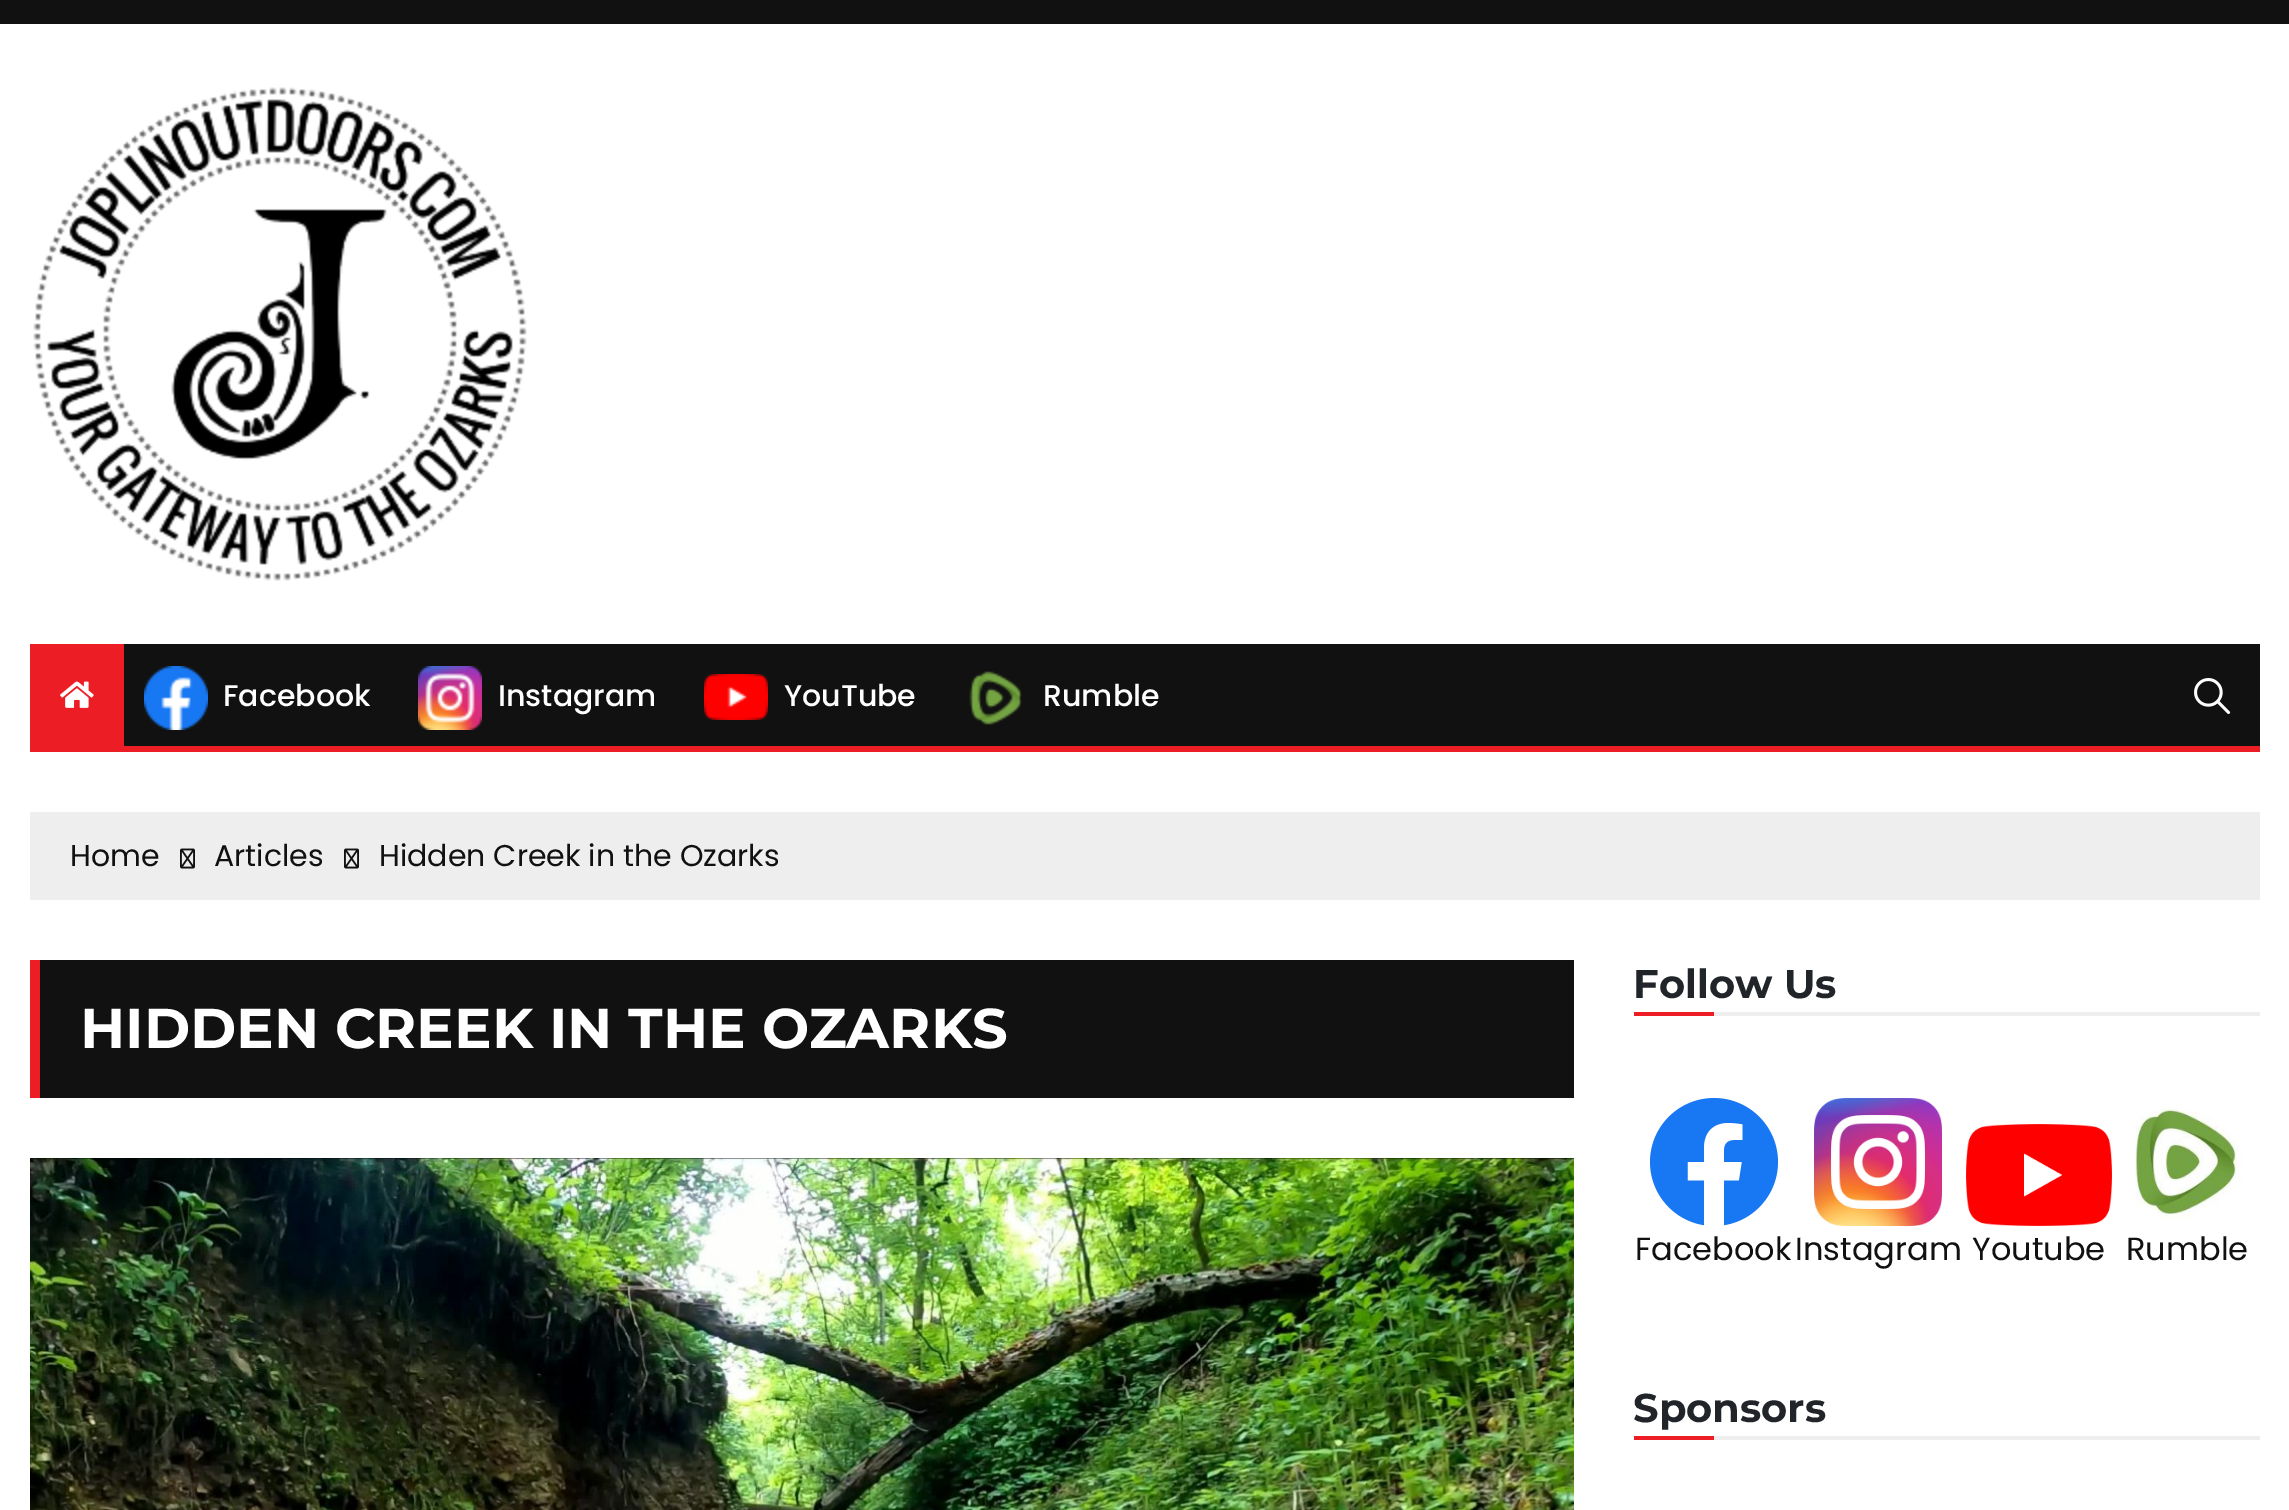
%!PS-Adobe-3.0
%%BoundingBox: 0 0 2289 1510
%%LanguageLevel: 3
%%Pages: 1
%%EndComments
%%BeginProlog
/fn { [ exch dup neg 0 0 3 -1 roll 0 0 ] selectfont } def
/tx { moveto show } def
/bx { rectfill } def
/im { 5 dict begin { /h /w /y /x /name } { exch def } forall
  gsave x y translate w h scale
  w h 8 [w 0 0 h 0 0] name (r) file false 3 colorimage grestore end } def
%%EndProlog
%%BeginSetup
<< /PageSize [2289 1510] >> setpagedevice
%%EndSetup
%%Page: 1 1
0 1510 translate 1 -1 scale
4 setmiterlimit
1 setgray
0 0 2289 1510 bx
0.067 setgray
0 0 2289 24 bx
(image0.raw) 33 87 494 494 im
124 644 2136 102 bx
0.929 0.114 0.145 setrgbcolor
30 746 2230 6 bx
30 644 94 102 bx
(image1.raw) 60 681 34 27 im
(image2.raw) 144 666 64 64 im
/Poppins-Medium 30 fn
1 setgray
(Facebook) 223 706 tx
(image3.raw) 418 666 64 64 im
(Instagram) 498 706 tx
(image4.raw) 704 674 64 46 im
(YouTube) 784 706 tx
(image5.raw) 969 671 53 54 im
(Rumble) 1043 706 tx
(image6.raw) 2194 678 37 36 im
0.933 setgray
30 812 2230 88 bx
/Poppins-Regular 30 fn
0.067 setgray
(Home) 70 866 tx
(image7.raw) 180 848 15 21 im
(Articles) 214 866 tx
(image7.raw) 344 848 15 21 im
(Hidden Creek in the Ozarks) 379 866 tx
40 960 1534 138 bx
0.929 0.114 0.145 setrgbcolor
30 960 10 138 bx
/Montserrat-Bold 56 fn
1 setgray
(HIDDEN CREEK IN THE OZARKS) 80 1048 tx
(image8.raw) 30 1158 1544 352 im
0.933 setgray
1714 1012 546 4 bx
/Montserrat-Bold 40 fn
0.129 0.145 0.161 setrgbcolor
(Follow Us) 1633 998 tx
0.929 0.114 0.145 setrgbcolor
1634 1012 80 4 bx
(image9.raw) 1650 1098 128 128 im
/Poppins-Regular 32 fn
0.067 setgray
(Facebook) 1635 1260 tx
(image10.raw) 1814 1098 128 128 im
(Instagram) 1795 1260 tx
(image11.raw) 1966 1124 146 102 im
(Youtube) 1972 1260 tx
(image12.raw) 2135 1107 107 114 im
(Rumble) 2126 1260 tx
0.933 setgray
1714 1436 546 4 bx
/Montserrat-Bold 40 fn
0.129 0.145 0.161 setrgbcolor
(Sponsors) 1633 1422 tx
0.929 0.114 0.145 setrgbcolor
1634 1436 80 4 bx
showpage
%%EOF
